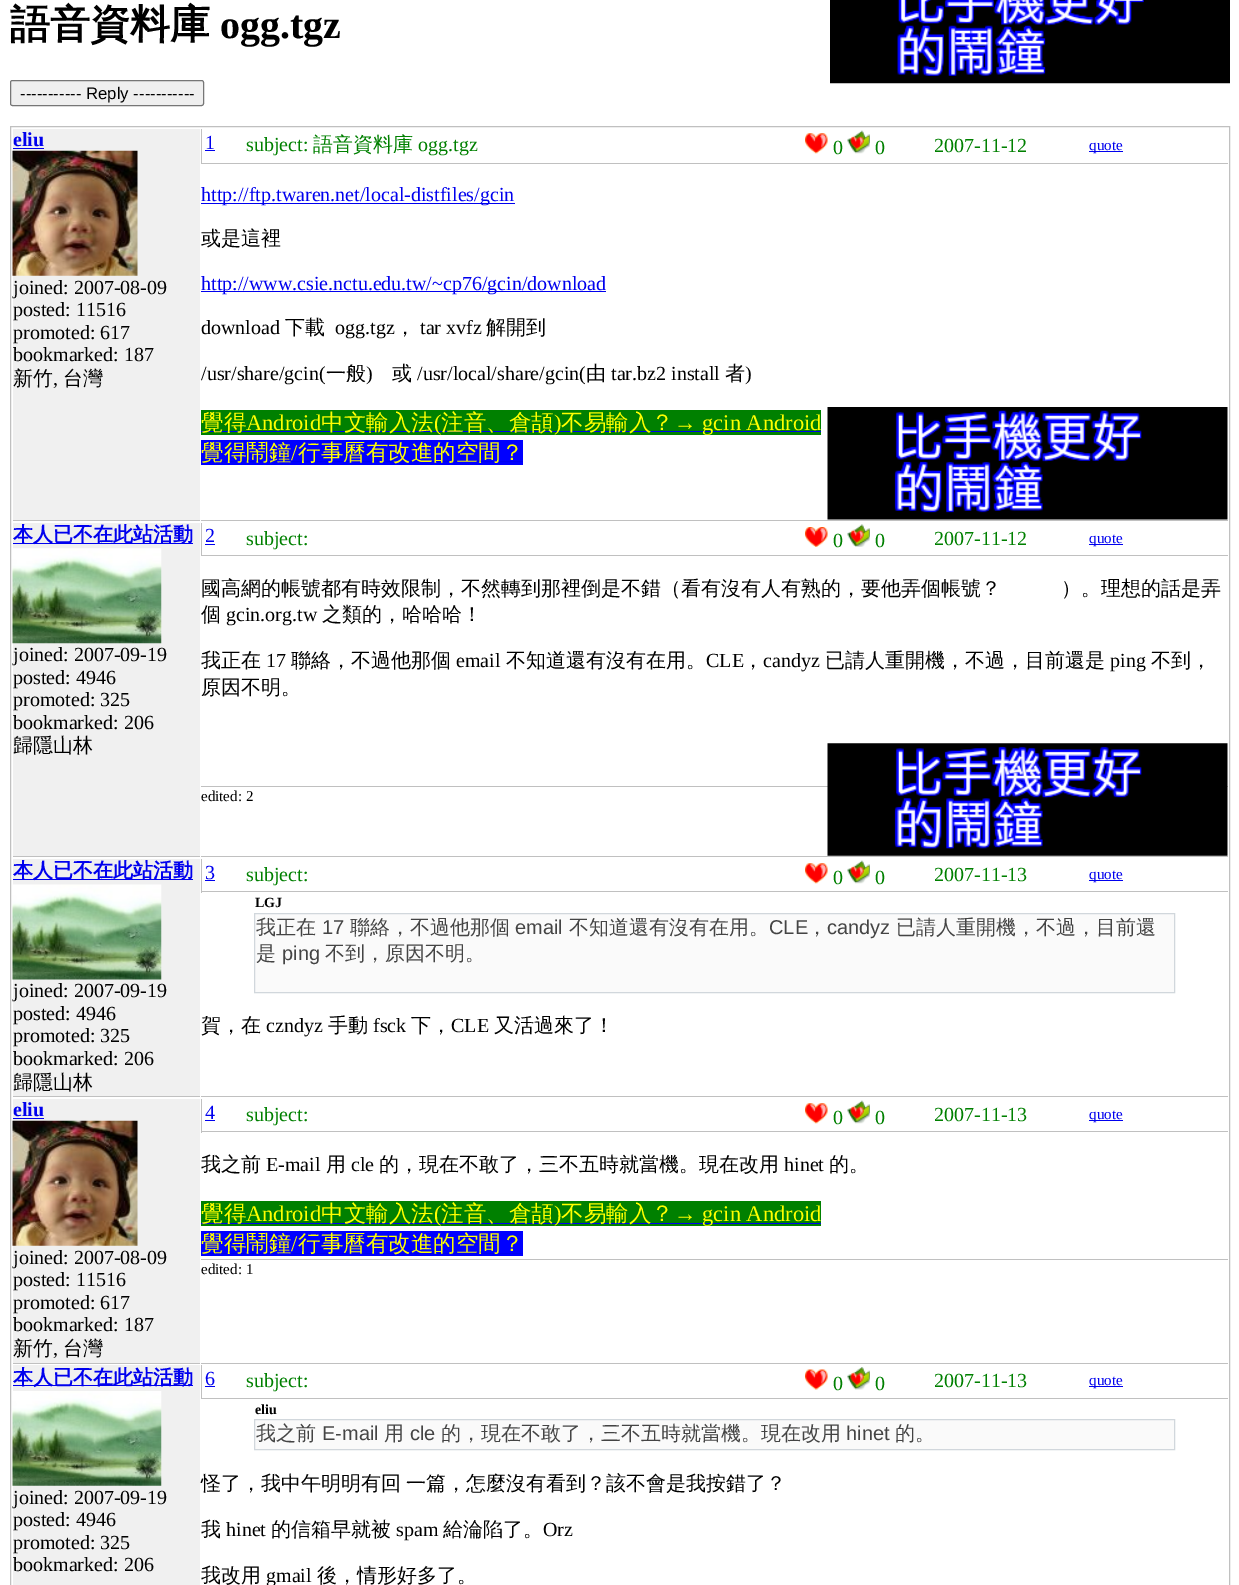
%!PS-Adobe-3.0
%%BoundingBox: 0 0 1239 1585
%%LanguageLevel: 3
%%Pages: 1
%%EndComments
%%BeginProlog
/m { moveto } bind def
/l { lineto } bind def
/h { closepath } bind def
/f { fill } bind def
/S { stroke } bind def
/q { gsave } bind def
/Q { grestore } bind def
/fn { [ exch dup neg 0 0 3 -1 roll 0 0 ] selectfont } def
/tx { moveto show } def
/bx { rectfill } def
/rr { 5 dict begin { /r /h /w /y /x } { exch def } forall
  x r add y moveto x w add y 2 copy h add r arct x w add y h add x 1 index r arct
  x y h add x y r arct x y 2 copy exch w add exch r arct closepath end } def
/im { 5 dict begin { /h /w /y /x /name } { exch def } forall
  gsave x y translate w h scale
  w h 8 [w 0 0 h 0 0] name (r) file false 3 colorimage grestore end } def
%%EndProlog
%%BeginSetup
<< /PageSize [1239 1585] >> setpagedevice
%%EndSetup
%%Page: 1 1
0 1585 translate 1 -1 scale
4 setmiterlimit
1 setgray
0 0 1239 1585 bx
/WenQuanYiZenHei-Bold 40 fn
0 setgray
(語音資料庫) 10 38 tx
/LiberationSerif-Bold 40 fn
(ogg.tgz) 220 38 tx
(image0.raw) 830 0 400 84 im
0.937 setgray
10.5 80.5 193 25 2 rr q f Q
0.463 setgray
S
/LiberationSans-Regular 16.75 fn
0 setgray
(----------- Reply -----------) 20 99 tx
0.753 setgray
10.5 126.5 1219 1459 rectstroke
0.941 setgray
13 129 187 391 bx
0.753 setgray
13 520 187 1 bx
/LiberationSerif-Bold 20 fn
0 0 0.933 setrgbcolor
(eliu) 13 146 tx
13 148 31 1 bx
(image1.raw) 12 150 126 126 im
/LiberationSerif-Regular 20 fn
0 setgray
(joined: 2007-08-09) 13 294 tx
(posted: 11516) 13 316 tx
(promoted: 617) 13 339 tx
(bookmarked: 187) 13 361 tx
/WenQuanYiZenHei-Medium 20 fn
(新竹) 13 385 tx
/LiberationSerif-Regular 20 fn
(,) 53 385 tx
/WenQuanYiZenHei-Medium 20 fn
(台灣) 63 385 tx
0.753 setgray
201 520 1027 1 bx
201 163 1027 1 bx
201 129 1 35 bx
/LiberationSerif-Regular 20 fn
0 0 0.933 setrgbcolor
(1) 205 149 tx
205 150 10 1 bx
0 0.502 0 setrgbcolor
(subject:) 246 151 tx
/WenQuanYiZenHei-Medium 20 fn
(語音資料庫) 313 151 tx
/LiberationSerif-Regular 20 fn
(ogg.tgz) 418 151 tx
(image2.raw) 805 133 23 21 im
(0) 833 154 tx
(image3.raw) 847 130 23 24 im
(0) 875 154 tx
(2007-11-12) 934 152 tx
0 0 0.933 setrgbcolor
1089 151 34 1 bx
/LiberationSerif-Regular 15 fn
(quote) 1089 150 tx
201 203 314 1 bx
/LiberationSerif-Regular 20 fn
(http://ftp.twaren.net/local-distfiles/gcin) 201 201 tx
/WenQuanYiZenHei-Medium 20 fn
0 setgray
(或是這裡) 201 245 tx
0 0 0.933 setrgbcolor
201 291 405 1 bx
/LiberationSerif-Regular 20 fn
(http://www.csie.nctu.edu.tw/~cp76/gcin/download) 201 290 tx
0 setgray
(download) 201 334 tx
/WenQuanYiZenHei-Medium 20 fn
(下載) 285 334 tx
/LiberationSerif-Regular 20 fn
(ogg.tgz) 335 334 tx
/WenQuanYiZenHei-Medium 20 fn
(，) 395 334 tx
/LiberationSerif-Regular 20 fn
(tar xvfz) 420 334 tx
/WenQuanYiZenHei-Medium 20 fn
(解開到) 486 334 tx
/LiberationSerif-Regular 20 fn
(/usr/share/gcin\() 201 380 tx
/WenQuanYiZenHei-Medium 20 fn
(一般) 326 380 tx
/LiberationSerif-Regular 20 fn
(\)) 366 380 tx
/WenQuanYiZenHei-Medium 20 fn
(或) 392 380 tx
/LiberationSerif-Regular 20 fn
(/usr/local/share/gcin\() 417 380 tx
/WenQuanYiZenHei-Medium 20 fn
(由) 586 380 tx
/LiberationSerif-Regular 20 fn
(tar.bz2 install) 611 380 tx
/WenQuanYiZenHei-Medium 20 fn
(者) 725 380 tx
/LiberationSerif-Regular 20 fn
(\)) 745 380 tx
0 0.502 0 setrgbcolor
201 410 620 25 bx
0 0 0.933 setrgbcolor
201 431 620 1 bx
/WenQuanYiZenHei-Medium 22.5 fn
1 1 0 setrgbcolor
(覺得) 201 430 tx
/LiberationSerif-Regular 22.5 fn
(Android) 246 430 tx
/WenQuanYiZenHei-Medium 22.5 fn
(中文輸入法) 321 430 tx
/LiberationSerif-Regular 22.5 fn
(\() 434 430 tx
/WenQuanYiZenHei-Medium 22.5 fn
(注音、倉頡) 441 430 tx
/LiberationSerif-Regular 22.5 fn
(\)) 554 430 tx
/WenQuanYiZenHei-Medium 22.5 fn
(不易輸入？) 561 430 tx
/LiberationSerif-Regular 22.5 fn
(→ gcin Android) 674 430 tx
(image4.raw) 827 407 401 113 im
0 0 1 setrgbcolor
201 440 322 25 bx
0 0 0.933 setrgbcolor
201 461 322 1 bx
/WenQuanYiZenHei-Medium 22.5 fn
1 1 0 setrgbcolor
(覺得鬧鐘) 201 460 tx
/LiberationSerif-Regular 22.5 fn
(/) 291 460 tx
/WenQuanYiZenHei-Medium 22.5 fn
(行事曆有改進的空間？) 298 460 tx
0.941 setgray
13 523 187 333 bx
0.753 setgray
13 856 187 1 bx
0 0 0.933 setrgbcolor
13 543 180 1 bx
/WenQuanYiZenHei-Bold 20 fn
(本人已不在此站活動) 13 541 tx
(image5.raw) 12 548 150 96 im
/LiberationSerif-Regular 20 fn
0 setgray
(joined: 2007-09-19) 13 661 tx
(posted: 4946) 13 684 tx
(promoted: 325) 13 706 tx
(bookmarked: 206) 13 729 tx
/WenQuanYiZenHei-Medium 20 fn
(歸隱山林) 13 752 tx
0.753 setgray
201 856 1027 1 bx
201 555 1027 1 bx
201 523 1 33 bx
/LiberationSerif-Regular 20 fn
0 0 0.933 setrgbcolor
(2) 205 542 tx
205 544 10 1 bx
0 0.502 0 setrgbcolor
(subject:) 246 545 tx
(image6.raw) 805 527 23 20 im
(0) 833 547 tx
(image7.raw) 847 524 23 23 im
(0) 875 547 tx
(2007-11-12) 934 545 tx
0 0 0.933 setrgbcolor
1089 544 34 1 bx
/LiberationSerif-Regular 15 fn
(quote) 1089 543 tx
/WenQuanYiZenHei-Medium 20 fn
0 setgray
(國高網的帳號都有時效限制，不然轉到那裡倒是不錯（看有沒有人有熟的，要他弄個帳號？) 201 595 tx
(）。理想的話是弄) 1061 595 tx
(個) 201 621 tx
/LiberationSerif-Regular 20 fn
(gcin.org.tw) 226 621 tx
/WenQuanYiZenHei-Medium 20 fn
(之類的，哈哈哈！) 322 621 tx
(我正在) 201 667 tx
/LiberationSerif-Regular 20 fn
(17) 266 667 tx
/WenQuanYiZenHei-Medium 20 fn
(聯絡，不過他那個) 291 667 tx
/LiberationSerif-Regular 20 fn
(email) 456 667 tx
/WenQuanYiZenHei-Medium 20 fn
(不知道還有沒有在用。) 506 667 tx
/LiberationSerif-Regular 20 fn
(CLE) 706 667 tx
/WenQuanYiZenHei-Medium 20 fn
(，) 743 667 tx
/LiberationSerif-Regular 20 fn
(candyz) 763 667 tx
/WenQuanYiZenHei-Medium 20 fn
(已請人重開機，不過，目前還是) 825 667 tx
/LiberationSerif-Regular 20 fn
(ping) 1110 667 tx
/WenQuanYiZenHei-Medium 20 fn
(不到，) 1151 667 tx
(原因不明。) 201 694 tx
0.753 setgray
201 786 1027 1 bx
(image8.raw) 827 743 401 113 im
/LiberationSerif-Regular 15 fn
0 setgray
(edited: 2) 201 801 tx
0.941 setgray
13 859 187 237 bx
0.753 setgray
13 1096 187 1 bx
0 0 0.933 setrgbcolor
13 879 180 1 bx
/WenQuanYiZenHei-Bold 20 fn
(本人已不在此站活動) 13 877 tx
(image9.raw) 12 884 150 96 im
/LiberationSerif-Regular 20 fn
0 setgray
(joined: 2007-09-19) 13 997 tx
(posted: 4946) 13 1020 tx
(promoted: 325) 13 1042 tx
(bookmarked: 206) 13 1065 tx
/WenQuanYiZenHei-Medium 20 fn
(歸隱山林) 13 1089 tx
0.753 setgray
201 1096 1027 1 bx
201 891 1027 1 bx
201 859 1 34 bx
/LiberationSerif-Regular 20 fn
0 0 0.933 setrgbcolor
(3) 205 879 tx
205 880 10 1 bx
0 0.502 0 setrgbcolor
(subject:) 246 881 tx
(image2.raw) 805 863 23 21 im
(0) 833 884 tx
(image3.raw) 847 860 23 24 im
(0) 875 884 tx
(2007-11-13) 934 881 tx
0 0 0.933 setrgbcolor
1089 880 34 1 bx
/LiberationSerif-Regular 15 fn
(quote) 1089 879 tx
/LiberationSerif-Bold 14 fn
0 setgray
(LGJ) 255 907 tx
0.98 setgray
254.5 913.5 m 1174.5 913.5 l 1174.5 992.5 l 254.5 992.5 l h q f Q
0.82 0.843 0.863 setrgbcolor
S
/WenQuanYiZenHei-Medium 20 fn
0.267 setgray
(我正在) 256 934 tx
/LiberationSans-Regular 20 fn
(17) 322 934 tx
/WenQuanYiZenHei-Medium 20 fn
(聯絡，不過他那個) 350 934 tx
/LiberationSans-Regular 20 fn
(email) 515 934 tx
/WenQuanYiZenHei-Medium 20 fn
(不知道還有沒有在用。) 569 934 tx
/LiberationSans-Regular 20 fn
(CLE) 769 934 tx
/WenQuanYiZenHei-Medium 20 fn
(，) 807 934 tx
/LiberationSans-Regular 20 fn
(candyz) 827 934 tx
/WenQuanYiZenHei-Medium 20 fn
(已請人重開機，不過，目前還) 896 934 tx
(是) 256 960 tx
/LiberationSans-Regular 20 fn
(ping) 282 960 tx
/WenQuanYiZenHei-Medium 20 fn
(不到，原因不明。) 325 960 tx
0 setgray
(賀，在) 201 1032 tx
/LiberationSerif-Regular 20 fn
(czndyz) 266 1032 tx
/WenQuanYiZenHei-Medium 20 fn
(手動) 328 1032 tx
/LiberationSerif-Regular 20 fn
(fsck) 373 1032 tx
/WenQuanYiZenHei-Medium 20 fn
(下，) 411 1032 tx
/LiberationSerif-Regular 20 fn
(CLE) 451 1032 tx
/WenQuanYiZenHei-Medium 20 fn
(又活過來了！) 494 1032 tx
0.941 setgray
13 1099 187 264 bx
0.753 setgray
13 1363 187 1 bx
/LiberationSerif-Bold 20 fn
0 0 0.933 setrgbcolor
(eliu) 13 1116 tx
13 1118 31 1 bx
(image1.raw) 12 1120 126 126 im
/LiberationSerif-Regular 20 fn
0 setgray
(joined: 2007-08-09) 13 1264 tx
(posted: 11516) 13 1286 tx
(promoted: 617) 13 1309 tx
(bookmarked: 187) 13 1331 tx
/WenQuanYiZenHei-Medium 20 fn
(新竹) 13 1355 tx
/LiberationSerif-Regular 20 fn
(,) 53 1355 tx
/WenQuanYiZenHei-Medium 20 fn
(台灣) 63 1355 tx
0.753 setgray
201 1363 1027 1 bx
201 1131 1027 1 bx
201 1099 1 34 bx
/LiberationSerif-Regular 20 fn
0 0 0.933 setrgbcolor
(4) 205 1119 tx
205 1120 10 1 bx
0 0.502 0 setrgbcolor
(subject:) 246 1121 tx
(image2.raw) 805 1103 23 21 im
(0) 833 1124 tx
(image3.raw) 847 1100 23 24 im
(0) 875 1124 tx
(2007-11-13) 934 1121 tx
0 0 0.933 setrgbcolor
1089 1120 34 1 bx
/LiberationSerif-Regular 15 fn
(quote) 1089 1119 tx
/WenQuanYiZenHei-Medium 20 fn
0 setgray
(我之前) 201 1171 tx
/LiberationSerif-Regular 20 fn
(E-mail) 266 1171 tx
/WenQuanYiZenHei-Medium 20 fn
(用) 326 1171 tx
/LiberationSerif-Regular 20 fn
(cle) 351 1171 tx
/WenQuanYiZenHei-Medium 20 fn
(的，現在不敢了，三不五時就當機。現在改用) 379 1171 tx
/LiberationSerif-Regular 20 fn
(hinet) 784 1171 tx
/WenQuanYiZenHei-Medium 20 fn
(的。) 829 1171 tx
0 0.502 0 setrgbcolor
201 1201 620 25 bx
0 0 0.933 setrgbcolor
201 1223 620 1 bx
/WenQuanYiZenHei-Medium 22.5 fn
1 1 0 setrgbcolor
(覺得) 201 1221 tx
/LiberationSerif-Regular 22.5 fn
(Android) 246 1221 tx
/WenQuanYiZenHei-Medium 22.5 fn
(中文輸入法) 321 1221 tx
/LiberationSerif-Regular 22.5 fn
(\() 434 1221 tx
/WenQuanYiZenHei-Medium 22.5 fn
(注音、倉頡) 441 1221 tx
/LiberationSerif-Regular 22.5 fn
(\)) 554 1221 tx
/WenQuanYiZenHei-Medium 22.5 fn
(不易輸入？) 561 1221 tx
/LiberationSerif-Regular 22.5 fn
(→ gcin Android) 674 1221 tx
0 0 1 setrgbcolor
201 1231 322 25 bx
0 0 0.933 setrgbcolor
201 1253 322 1 bx
/WenQuanYiZenHei-Medium 22.5 fn
1 1 0 setrgbcolor
(覺得鬧鐘) 201 1251 tx
/LiberationSerif-Regular 22.5 fn
(/) 291 1251 tx
/WenQuanYiZenHei-Medium 22.5 fn
(行事曆有改進的空間？) 298 1251 tx
0.753 setgray
201 1259 1027 1 bx
/LiberationSerif-Regular 15 fn
0 setgray
(edited: 1) 201 1274 tx
0.941 setgray
13 1365 187 220 bx
0 0 0.933 setrgbcolor
13 1385 180 1 bx
/WenQuanYiZenHei-Bold 20 fn
(本人已不在此站活動) 13 1384 tx
(image10.raw) 12 1391 150 95 im
/LiberationSerif-Regular 20 fn
0 setgray
(joined: 2007-09-19) 13 1504 tx
(posted: 4946) 13 1526 tx
(promoted: 325) 13 1549 tx
(bookmarked: 206) 13 1571 tx
0.753 setgray
201 1398 1027 1 bx
201 1365 1 34 bx
0 0 0.933 setrgbcolor
(6) 205 1385 tx
205 1386 10 1 bx
0 0.502 0 setrgbcolor
(subject:) 246 1387 tx
(image11.raw) 805 1369 23 21 im
(0) 833 1390 tx
(image12.raw) 847 1367 23 23 im
(0) 875 1390 tx
(2007-11-13) 934 1387 tx
0 0 0.933 setrgbcolor
1089 1386 34 1 bx
/LiberationSerif-Regular 15 fn
(quote) 1089 1385 tx
/LiberationSerif-Bold 14 fn
0 setgray
(eliu) 255 1414 tx
0.98 setgray
254.5 1419.5 m 1174.5 1419.5 l 1174.5 1449.5 l 254.5 1449.5 l h q f Q
0.82 0.843 0.863 setrgbcolor
S
/WenQuanYiZenHei-Medium 20 fn
0.267 setgray
(我之前) 256 1440 tx
/LiberationSans-Regular 20 fn
(E-mail) 322 1440 tx
/WenQuanYiZenHei-Medium 20 fn
(用) 384 1440 tx
/LiberationSans-Regular 20 fn
(cle) 410 1440 tx
/WenQuanYiZenHei-Medium 20 fn
(的，現在不敢了，三不五時就當機。現在改用) 441 1440 tx
/LiberationSans-Regular 20 fn
(hinet) 846 1440 tx
/WenQuanYiZenHei-Medium 20 fn
(的。) 895 1440 tx
0 setgray
201 1490 m -1 0 32 (怪了，我中午明明有回 一篇，怎麼沒有看到？該不會是我按錯了？) widthshow
(我) 201 1536 tx
/LiberationSerif-Regular 20 fn
(hinet) 226 1536 tx
/WenQuanYiZenHei-Medium 20 fn
(的信箱早就被) 271 1536 tx
/LiberationSerif-Regular 20 fn
(spam) 396 1536 tx
/WenQuanYiZenHei-Medium 20 fn
(給淪陷了。) 443 1536 tx
/LiberationSerif-Regular 20 fn
(Orz) 543 1536 tx
/WenQuanYiZenHei-Medium 20 fn
(我改用) 201 1582 tx
/LiberationSerif-Regular 20 fn
(gmail) 266 1582 tx
/WenQuanYiZenHei-Medium 20 fn
(後，情形好多了。) 317 1582 tx
showpage
%%EOF
